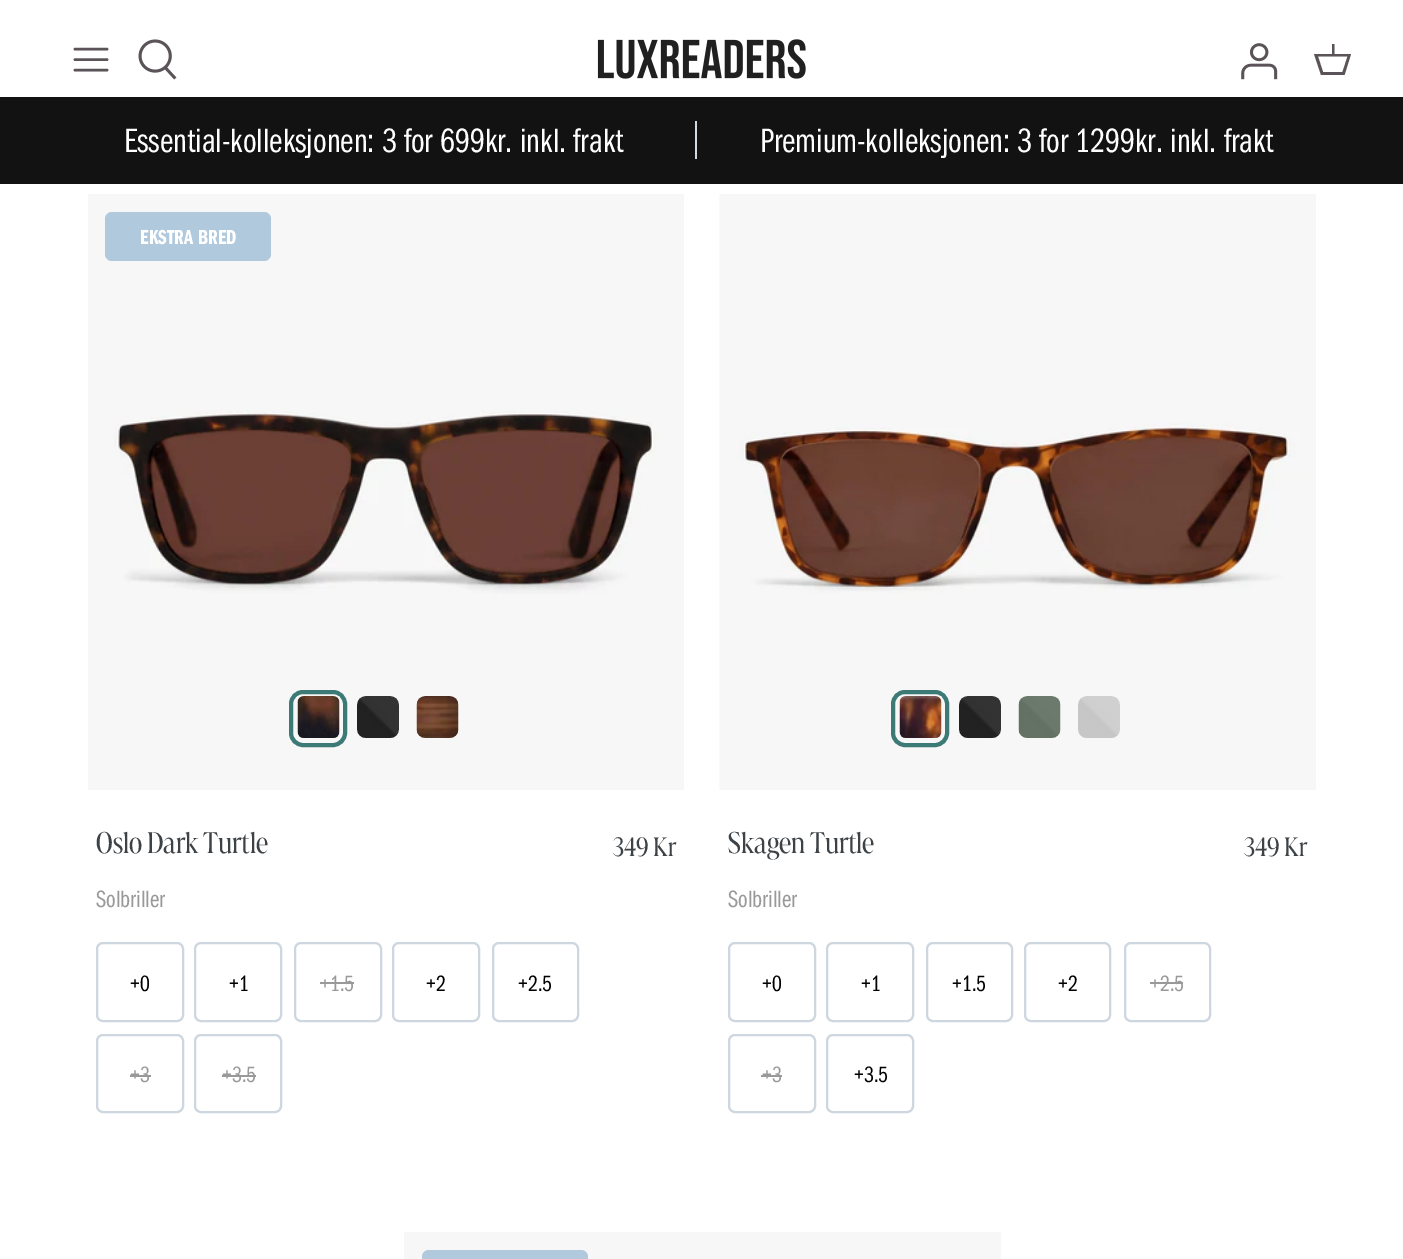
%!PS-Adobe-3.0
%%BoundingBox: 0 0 1403 1259
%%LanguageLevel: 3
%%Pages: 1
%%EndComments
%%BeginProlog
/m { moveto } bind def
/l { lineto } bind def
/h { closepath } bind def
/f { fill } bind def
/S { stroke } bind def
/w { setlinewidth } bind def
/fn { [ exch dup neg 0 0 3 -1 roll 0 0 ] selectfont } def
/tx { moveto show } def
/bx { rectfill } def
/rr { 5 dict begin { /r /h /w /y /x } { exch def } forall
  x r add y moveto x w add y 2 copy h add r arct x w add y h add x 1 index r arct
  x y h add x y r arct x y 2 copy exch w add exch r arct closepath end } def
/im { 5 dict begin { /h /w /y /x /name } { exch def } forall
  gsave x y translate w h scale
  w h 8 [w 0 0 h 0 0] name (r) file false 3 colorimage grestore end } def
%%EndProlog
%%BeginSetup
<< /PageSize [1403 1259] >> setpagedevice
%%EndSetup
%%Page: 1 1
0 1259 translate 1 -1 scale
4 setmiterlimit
1 setgray
0 0 1403 1259 bx
0.353 0.325 0.341 setrgbcolor
2.6 w
1 setlinecap
1 setlinejoin
75 59.5 m 107 59.5 l 75 49 m 107 49 l 75 70 m 107 70 l S
(image0.raw) 138 39 39 41 im
(image1.raw) 597 39 209 40 im
(image2.raw) 1241 43 37 37 im
1332 54 m 1332 44 l 1334.5 44 l 1334.5 54 l 1351 54 l 1344.5 75 l 1321 75 l 1314 54 l h 1318 56.5 m 1323 72 l 1342.5 72 l 1347.5 56.5 l h f
0.071 setgray
0 97 1403 87 bx
/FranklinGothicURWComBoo-Regular 35 fn
1 setgray
(Essential-kolleksjonen: 3 for 699kr. inkl. frakt) 124 152 tx
0.824 0.851 0.89 setrgbcolor
695 121 2 38 bx
1 setgray
(Premium-kolleksjonen: 3 for 1299kr. inkl. frakt) 760 152 tx
(image3.raw) 88 194 596 596 im
0.69 0.788 0.867 setrgbcolor
105 212 166 49 7 rr f
/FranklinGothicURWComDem-SemiBold 21 fn
1 setgray
(EKSTRA BRED) 140 244 tx
0.235 0.478 0.459 setrgbcolor
4 w
0 setlinecap
0 setlinejoin
291 692 54 53 12 rr S
(image4.raw) 297 696 43 42 im
(image5.raw) 357 696 42 42 im
(image6.raw) 416 696 43 42 im
/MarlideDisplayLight-Regular 31.5 fn
0.239 0.259 0.275 setrgbcolor
(Oslo Dark Turtle) 96 853 tx
/MarlideDisplayLight-Regular 28 fn
(349 Kr) 613 856 tx
/FranklinGothicURWComBoo-Regular 24.5 fn
0.6 setgray
(Solbriller) 96 907 tx
0.808 0.839 0.875 setrgbcolor
2 w
97 943 86 78 6 rr S
/FranklinGothicURWComBoo-Regular 23 fn
0 setgray
(+0) 130 991 tx
0.808 0.839 0.875 setrgbcolor
195 943 86 78 6 rr S
0 setgray
(+1) 229 991 tx
0.808 0.839 0.875 setrgbcolor
295 943 86 78 6 rr S
0.6 setgray
(+1.5) 320 991 tx
320 982 34 2 bx
0.808 0.839 0.875 setrgbcolor
393 943 86 78 6 rr S
0 setgray
(+2) 426 991 tx
0.808 0.839 0.875 setrgbcolor
493 943 85 78 6 rr S
0 setgray
(+2.5) 518 991 tx
0.808 0.839 0.875 setrgbcolor
97 1035 86 77 6 rr S
0.6 setgray
(+3) 130 1082 tx
130 1075 21 2 bx
0.808 0.839 0.875 setrgbcolor
195 1035 86 77 6 rr S
0.6 setgray
(+3.5) 222 1082 tx
222 1075 34 2 bx
(image7.raw) 719 194 597 596 im
0.235 0.478 0.459 setrgbcolor
4 w
893 692 54 53 12 rr S
(image8.raw) 899 696 43 42 im
(image9.raw) 959 696 42 42 im
(image10.raw) 1018 696 43 42 im
(image11.raw) 1078 696 42 42 im
/MarlideDisplayLight-Regular 31.5 fn
0.239 0.259 0.275 setrgbcolor
(Skagen Turtle) 728 853 tx
/MarlideDisplayLight-Regular 28 fn
(349 Kr) 1244 856 tx
/FranklinGothicURWComBoo-Regular 24.5 fn
0.6 setgray
(Solbriller) 728 907 tx
0.808 0.839 0.875 setrgbcolor
2 w
729 943 86 78 6 rr S
/FranklinGothicURWComBoo-Regular 23 fn
0 setgray
(+0) 762 991 tx
0.808 0.839 0.875 setrgbcolor
827 943 86 78 6 rr S
0 setgray
(+1) 861 991 tx
0.808 0.839 0.875 setrgbcolor
927 943 85 78 6 rr S
0 setgray
(+1.5) 952 991 tx
0.808 0.839 0.875 setrgbcolor
1025 943 85 78 6 rr S
0 setgray
(+2) 1058 991 tx
0.808 0.839 0.875 setrgbcolor
1125 943 85 78 6 rr S
0.6 setgray
(+2.5) 1150 991 tx
1150 982 33 2 bx
0.808 0.839 0.875 setrgbcolor
729 1035 86 77 6 rr S
0.6 setgray
(+3) 762 1082 tx
761 1075 21 2 bx
0.808 0.839 0.875 setrgbcolor
827 1035 86 77 6 rr S
0 setgray
(+3.5) 854 1082 tx
0.969 setgray
404 1232 597 27 bx
0.69 0.788 0.867 setrgbcolor
422 1250 166 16 7 rr f
showpage
%%EOF
